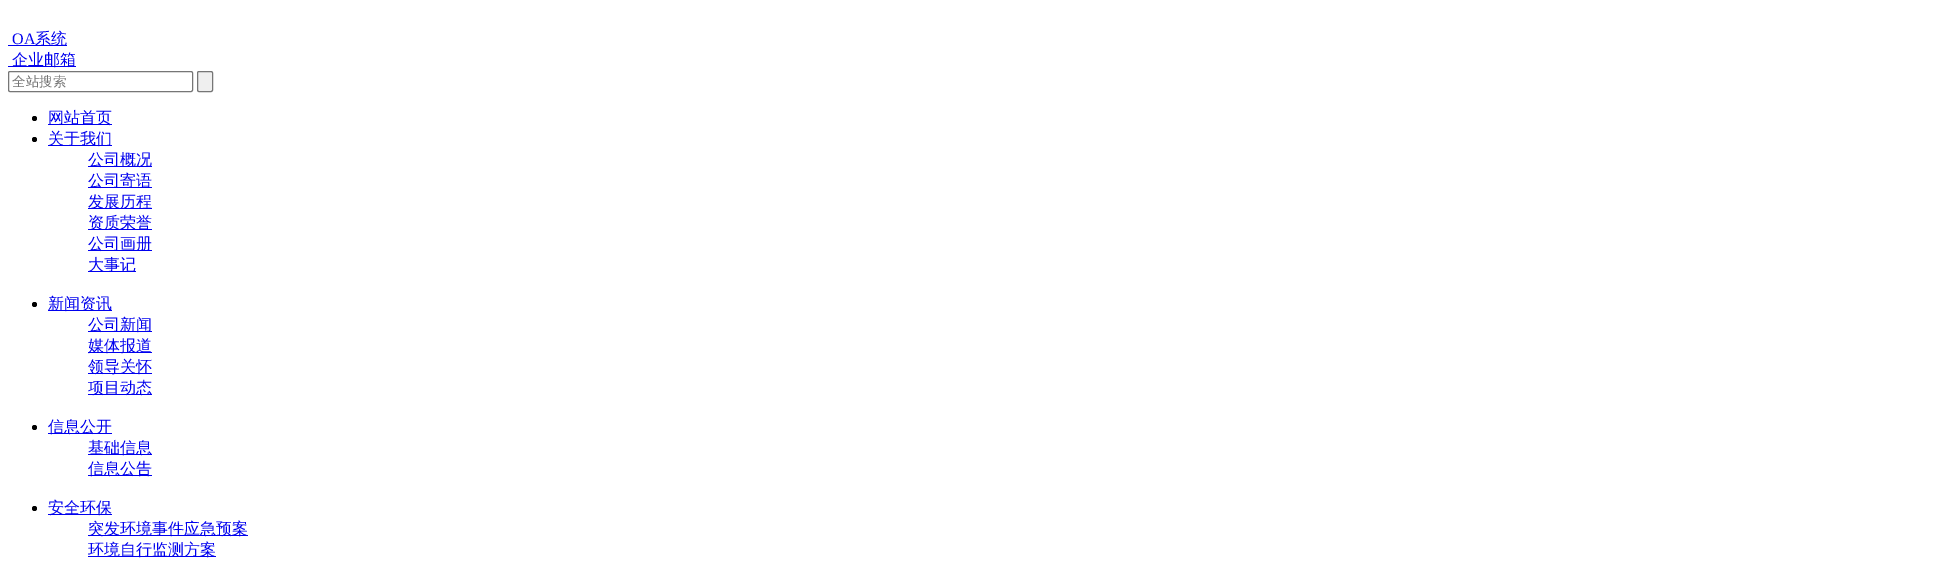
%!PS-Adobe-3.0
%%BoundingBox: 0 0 1957 571
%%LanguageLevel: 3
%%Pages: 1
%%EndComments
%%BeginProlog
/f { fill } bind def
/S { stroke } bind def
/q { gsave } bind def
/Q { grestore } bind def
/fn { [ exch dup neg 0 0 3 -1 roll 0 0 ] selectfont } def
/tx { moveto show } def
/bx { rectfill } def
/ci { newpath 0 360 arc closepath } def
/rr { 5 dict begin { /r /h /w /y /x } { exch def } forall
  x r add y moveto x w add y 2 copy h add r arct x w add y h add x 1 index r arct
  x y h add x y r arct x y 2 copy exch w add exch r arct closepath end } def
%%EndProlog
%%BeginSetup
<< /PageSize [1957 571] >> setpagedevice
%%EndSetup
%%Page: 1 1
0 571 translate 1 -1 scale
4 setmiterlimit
1 setgray
0 0 1957 571 bx
/LiberationSerif-Regular 16 fn
0 0 0.933 setrgbcolor
(OA) 12 44 tx
8 45 59 1 bx
/WenQuanYiZenHei-Medium 16 fn
(系统) 35 44 tx
8 66 68 1 bx
(企业邮箱) 12 65 tx
0.463 setgray
8.5 71.5 184 20 1.5 rr S
/WenQuanYiZenHei-Medium 13.5 fn
0.459 setgray
(全站搜索) 12 86 tx
0.937 setgray
197.5 71.5 15 20 1.5 rr q f Q
0.463 setgray
S
0 setgray
34.5 118.5 2.5 ci f
0 0 0.933 setrgbcolor
48 124 64 1 bx
/WenQuanYiZenHei-Medium 16 fn
(网站首页) 48 123 tx
0 setgray
34.5 139.5 2.5 ci f
0 0 0.933 setrgbcolor
48 145 64 1 bx
(关于我们) 48 144 tx
88 166 64 1 bx
(公司概况) 88 165 tx
88 187 64 1 bx
(公司寄语) 88 186 tx
88 208 64 1 bx
(发展历程) 88 207 tx
88 229 64 1 bx
(资质荣誉) 88 228 tx
88 250 64 1 bx
(公司画册) 88 249 tx
88 271 48 1 bx
(大事记) 88 270 tx
0 setgray
34.5 304.5 2.5 ci f
0 0 0.933 setrgbcolor
48 310 64 1 bx
(新闻资讯) 48 309 tx
88 331 64 1 bx
(公司新闻) 88 330 tx
88 352 64 1 bx
(媒体报道) 88 351 tx
88 373 64 1 bx
(领导关怀) 88 372 tx
88 394 64 1 bx
(项目动态) 88 393 tx
0 setgray
34.5 427.5 2.5 ci f
0 0 0.933 setrgbcolor
48 433 64 1 bx
(信息公开) 48 432 tx
88 454 64 1 bx
(基础信息) 88 453 tx
88 475 64 1 bx
(信息公告) 88 474 tx
0 setgray
34.5 508.5 2.5 ci f
0 0 0.933 setrgbcolor
48 514 64 1 bx
(安全环保) 48 513 tx
88 535 160 1 bx
(突发环境事件应急预案) 88 534 tx
88 556 128 1 bx
(环境自行监测方案) 88 555 tx
showpage
%%EOF
